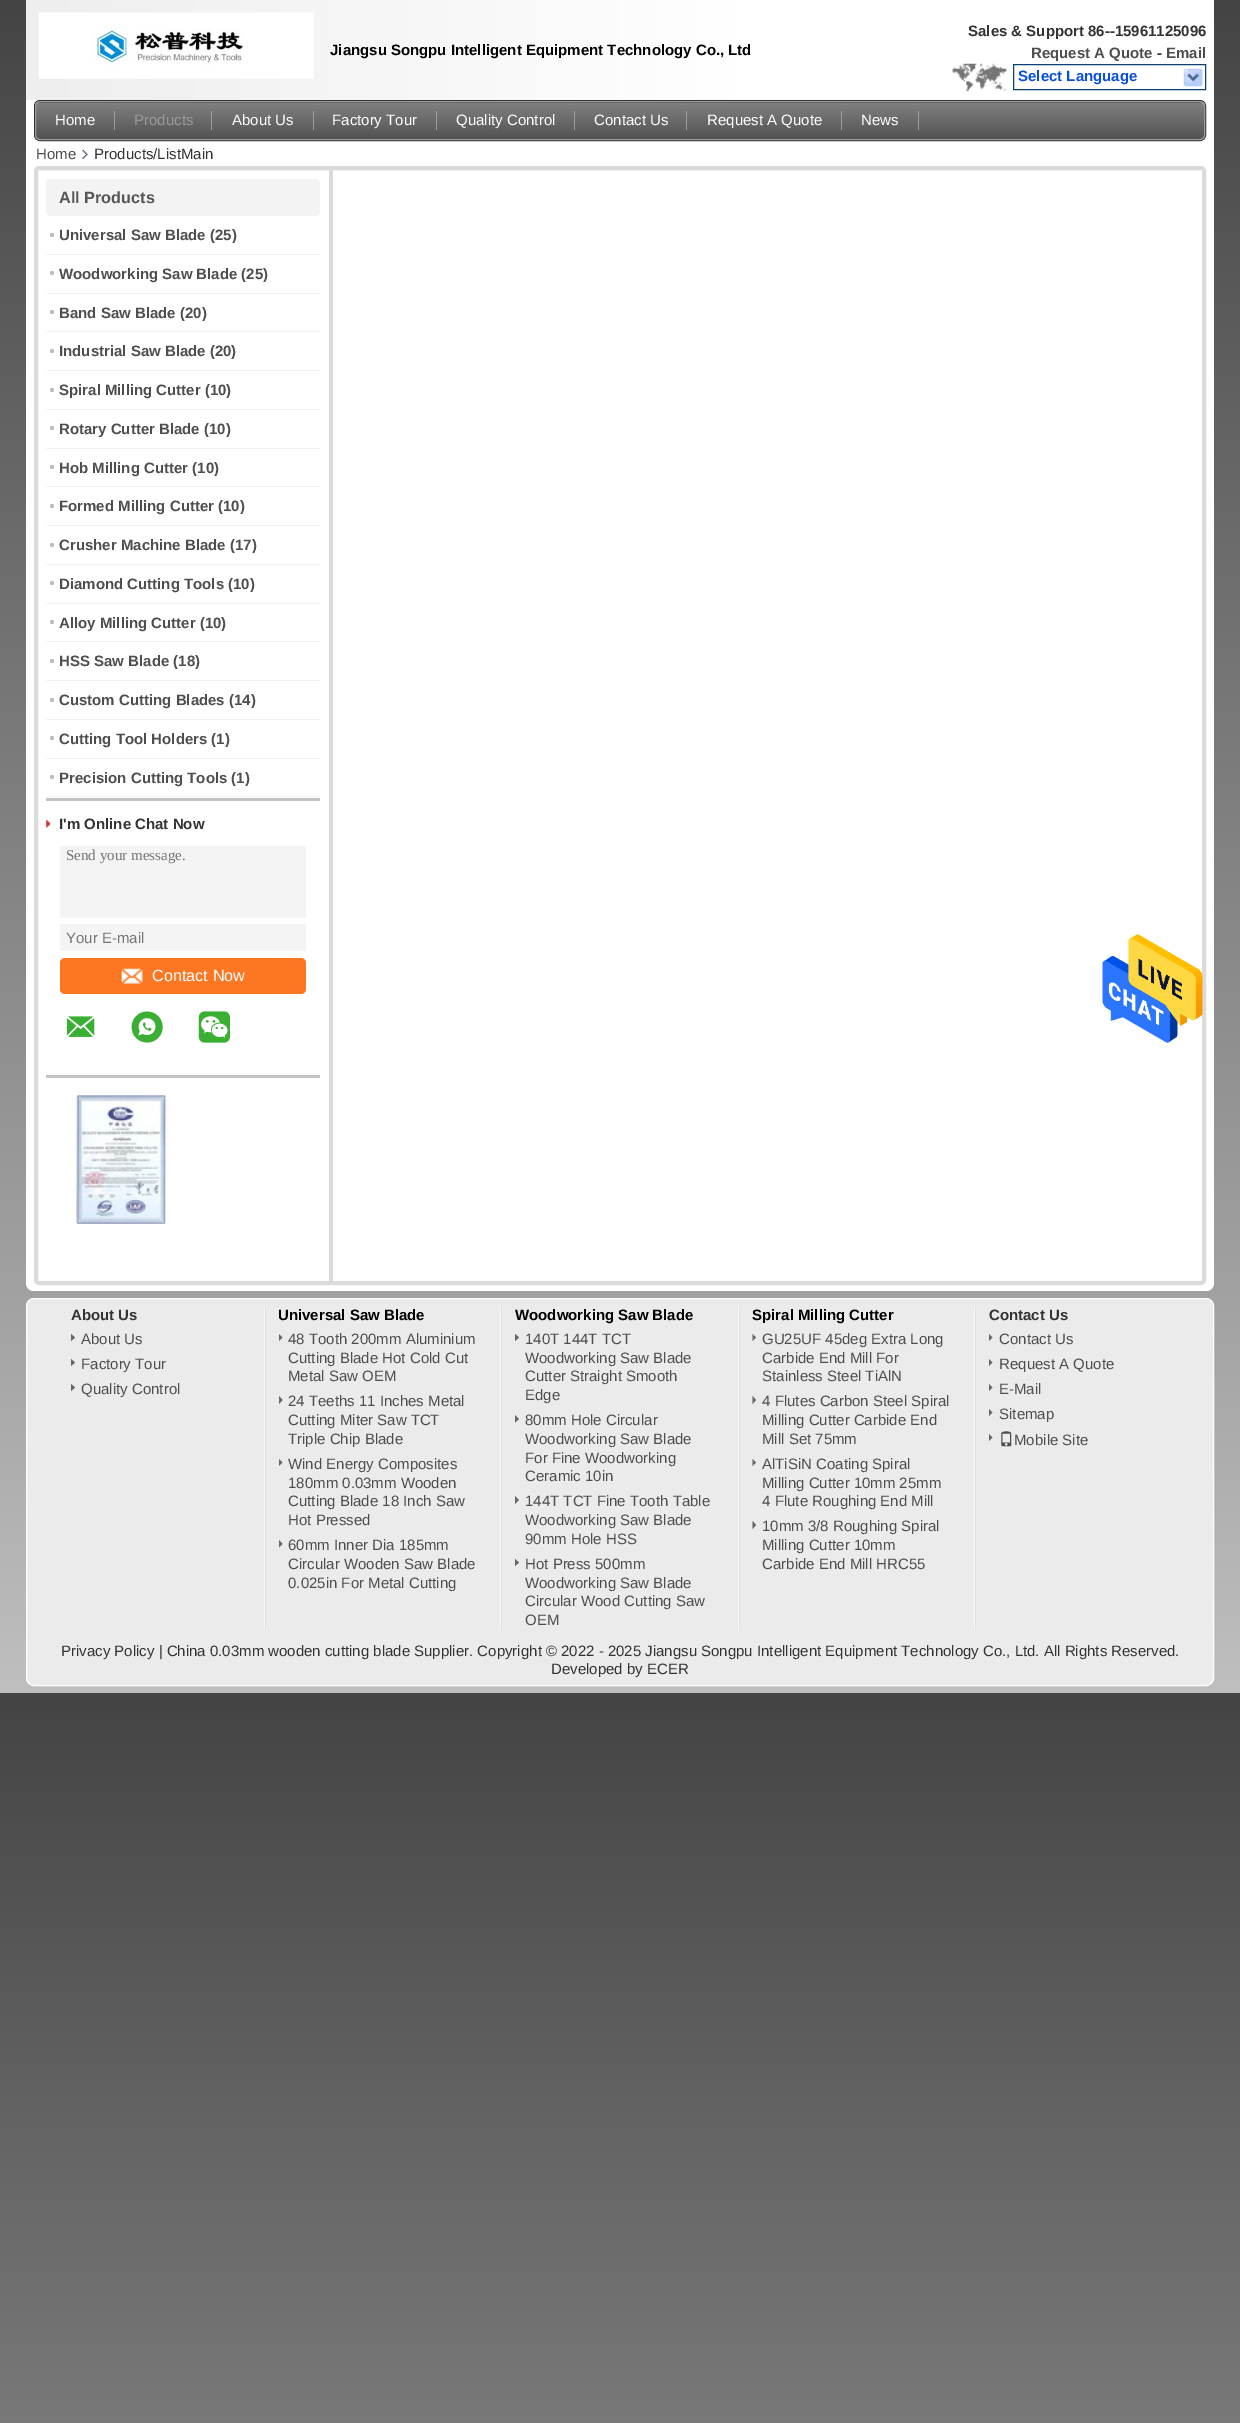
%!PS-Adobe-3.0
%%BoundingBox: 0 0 1240 2423
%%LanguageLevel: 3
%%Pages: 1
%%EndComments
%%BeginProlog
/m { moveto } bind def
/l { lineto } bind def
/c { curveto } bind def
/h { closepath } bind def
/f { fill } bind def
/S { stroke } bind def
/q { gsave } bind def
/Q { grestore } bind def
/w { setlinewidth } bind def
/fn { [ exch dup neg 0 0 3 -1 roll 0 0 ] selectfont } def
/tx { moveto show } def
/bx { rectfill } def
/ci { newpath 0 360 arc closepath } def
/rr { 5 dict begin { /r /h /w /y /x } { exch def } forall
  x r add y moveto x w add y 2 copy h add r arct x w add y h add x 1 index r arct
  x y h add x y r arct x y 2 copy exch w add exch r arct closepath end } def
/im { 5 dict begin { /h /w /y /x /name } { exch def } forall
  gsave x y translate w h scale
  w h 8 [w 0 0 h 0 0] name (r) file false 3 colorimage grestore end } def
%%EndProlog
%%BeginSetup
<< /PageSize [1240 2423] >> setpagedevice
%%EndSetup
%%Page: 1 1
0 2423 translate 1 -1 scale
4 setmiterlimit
1 setgray
0 0 1240 2423 bx
q 0 0 m 1240 0 l 1240 1693 l 0 1693 l h clip newpath
<< /ShadingType 2 /ColorSpace /DeviceRGB /Coords [620 0 620 1693] /Extend [true true] /Function << /FunctionType 2 /Domain [0 1] /C0 [0.267 0.267 0.267] /C1 [0.749 0.749 0.749] /N 1 >> >> shfill Q
q 0 1693 m 1240 1693 l 1240 2423 l 0 2423 l h clip newpath
<< /ShadingType 2 /ColorSpace /DeviceRGB /Coords [620 1693 620 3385] /Extend [true true] /Function << /FunctionType 2 /Domain [0 1] /C0 [0.267 0.267 0.267] /C1 [0.749 0.749 0.749] /N 1 >> >> shfill Q
26 100 1188 66 bx
q 26 0 m 1214 0 l 1214 100 l 26 100 l h clip newpath
<< /ShadingType 2 /ColorSpace /DeviceRGB /Coords [26 50 1214 50] /Extend [true true] /Function << /FunctionType 3 /Domain [0 1] /Functions [<< /FunctionType 2 /Domain [0 1] /C0 [0.933 0.933 0.933] /C1 [1 1 1] /N 1 >> << /FunctionType 2 /Domain [0 1] /C0 [1 1 1] /C1 [1 1 1] /N 1 >>] /Bounds [0.6] /Encode [0 1 0 1] >> >> shfill Q
(image0.raw) 38 12 276 67 im
/LiberationSans-Bold 15 fn
0 setgray
(Jiangsu Songpu Intelligent Equipment Technology Co., Ltd) 330 55 tx
0.2 setgray
(Sales & Support 86--15961125096) 968 36 tx
0.306 setgray
(Request A Quote) 1031 58 tx
0.2 setgray
(-) 1157 58 tx
0.306 setgray
(Email) 1166 58 tx
(image1.raw) 952 63 55 29 im
0.055 0.251 0.455 setrgbcolor
1013.5 64.5 192 25 rectstroke
0.027 0.314 0.851 setrgbcolor
(Select Language) 1018 81 tx
(image2.raw) 1183 68 20 19 im
0.2 setgray
34.5 100.5 1171 40 5.5 rr S
q
35 101 1170 39 5 rr clip newpath
q 35 101 m 1205 101 l 1205 103 l 35 103 l h clip newpath
<< /ShadingType 2 /ColorSpace /DeviceRGB /Coords [620 66 620 103] /Extend [true true] /Function << /FunctionType 2 /Domain [0 1] /C0 [0.506 0.506 0.506] /C1 [0.322 0.322 0.322] /N 1 >> >> shfill Q
q 35 103 m 1205 103 l 1205 139 l 35 139 l h clip newpath
<< /ShadingType 2 /ColorSpace /DeviceRGB /Coords [620 102 620 139] /Extend [true true] /Function << /FunctionType 2 /Domain [0 1] /C0 [0.506 0.506 0.506] /C1 [0.322 0.322 0.322] /N 1 >> >> shfill Q
Q
0.608 setgray
35.5 101.5 1169 38 4.5 rr S
0.616 setgray
114 111 1 19 bx
/LiberationSans-Regular 15 fn
1 setgray
(Home) 55 125 tx
0.616 setgray
211 111 1 19 bx
0.6 setgray
(Products) 134 125 tx
0.616 setgray
313 111 1 19 bx
1 setgray
(About Us) 232 125 tx
0.616 setgray
436 111 1 19 bx
1 setgray
(Factory Tour) 332 125 tx
0.616 setgray
574 111 1 19 bx
1 setgray
(Quality Control) 456 125 tx
0.616 setgray
686 111 1 19 bx
1 setgray
(Contact Us) 594 125 tx
0.616 setgray
841 111 1 19 bx
1 setgray
(Request A Quote) 707 125 tx
0.616 setgray
918 111 1 19 bx
1 setgray
(News) 861 125 tx
0.306 setgray
(Home) 36 159 tx
(image3.raw) 82 149 6 10 im
0.2 setgray
(Products/ListMain) 94 159 tx
1 setgray
26 166 m 1214 166 l 1214 1283 l 1214 1287.5 1210.5 1291 1206 1291 c 34 1291 l 29.5 1291 26 1287.5 26 1283 c h f
0.859 setgray
4 w
36 168 1168 1115 3 rr S
0.953 setgray
46 179 274 37 5 rr f
/LiberationSans-Bold 16.25 fn
0.333 setgray
(All Products) 59 203 tx
0.941 0.957 0.965 setrgbcolor
46 254 274 1 bx
0.733 setgray
52 235 2 ci f
/LiberationSans-Bold 15 fn
0.306 setgray
(Universal Saw Blade \(25\)) 59 240 tx
0.941 0.957 0.965 setrgbcolor
46 293 274 1 bx
0.733 setgray
52 273 2 ci f
0.306 setgray
(Woodworking Saw Blade \(25\)) 59 279 tx
0.941 0.957 0.965 setrgbcolor
46 331 274 1 bx
0.733 setgray
52 312 2 ci f
0.306 setgray
(Band Saw Blade \(20\)) 59 318 tx
0.941 0.957 0.965 setrgbcolor
46 370 274 1 bx
0.733 setgray
52 351 2 ci f
0.306 setgray
(Industrial Saw Blade \(20\)) 59 356 tx
0.941 0.957 0.965 setrgbcolor
46 409 274 1 bx
0.733 setgray
52 390 2 ci f
0.306 setgray
(Spiral Milling Cutter \(10\)) 59 395 tx
0.941 0.957 0.965 setrgbcolor
46 448 274 1 bx
0.733 setgray
52 428 2 ci f
0.306 setgray
(Rotary Cutter Blade \(10\)) 59 434 tx
0.941 0.957 0.965 setrgbcolor
46 486 274 1 bx
0.733 setgray
52 467 2 ci f
0.306 setgray
(Hob Milling Cutter \(10\)) 59 473 tx
0.941 0.957 0.965 setrgbcolor
46 525 274 1 bx
0.733 setgray
52 506 2 ci f
0.306 setgray
(Formed Milling Cutter \(10\)) 59 511 tx
0.941 0.957 0.965 setrgbcolor
46 564 274 1 bx
0.733 setgray
52 545 2 ci f
0.306 setgray
(Crusher Machine Blade \(17\)) 59 550 tx
0.941 0.957 0.965 setrgbcolor
46 603 274 1 bx
0.733 setgray
52 583 2 ci f
0.306 setgray
(Diamond Cutting Tools \(10\)) 59 589 tx
0.941 0.957 0.965 setrgbcolor
46 641 274 1 bx
0.733 setgray
52 622 2 ci f
0.306 setgray
(Alloy Milling Cutter \(10\)) 59 628 tx
0.941 0.957 0.965 setrgbcolor
46 680 274 1 bx
0.733 setgray
52 661 2 ci f
0.306 setgray
(HSS Saw Blade \(18\)) 59 666 tx
0.941 0.957 0.965 setrgbcolor
46 719 274 1 bx
0.733 setgray
52 700 2 ci f
0.306 setgray
(Custom Cutting Blades \(14\)) 59 705 tx
0.941 0.957 0.965 setrgbcolor
46 758 274 1 bx
0.733 setgray
52 738 2 ci f
0.306 setgray
(Cutting Tool Holders \(1\)) 59 744 tx
0.941 0.957 0.965 setrgbcolor
46 796 274 1 bx
0.733 setgray
52 777 2 ci f
0.306 setgray
(Precision Cutting Tools \(1\)) 59 783 tx
0.765 setgray
46 798 274 3 bx
46 1075 274 3 bx
(image4.raw) 46 819 5 9 im
0.2 setgray
(I'm Online Chat Now) 59 829 tx
0.957 setgray
60 846 246 72 bx
/LiberationSerif-Regular 15 fn
0.459 setgray
(Send your message.) 66 860 tx
0.957 setgray
60 924 246 27 bx
/LiberationSans-Regular 15 fn
0.459 setgray
(Your E-mail) 66 943 tx
0.992 0.467 0.133 setrgbcolor
60 958 246 36 5 rr f
(image5.raw) 121 968 22 16 im
/LiberationSans-Regular 16.25 fn
1 setgray
(Contact Now) 152 981 tx
(image6.raw) 66 1016 29 21 im
(image7.raw) 131 1011 32 32 im
(image8.raw) 198 1011 32 32 im
(image9.raw) 76 1095 91 129 im
0.859 setgray
329 170 4 1111 bx
(image10.raw) 1102 934 101 109 im
0.922 setgray
26.5 1298.5 1187 387 7.5 rr q f Q
1 setgray
1 w
S
0.973 setgray
264 1306 1 324 bx
/LiberationSans-Bold 15 fn
0.2 setgray
(About Us) 71 1320 tx
0.4 setgray
71 1341 m 71 1334 l 75 1337.5 l h f
/LiberationSans-Regular 15 fn
0.306 setgray
(About Us) 81 1344 tx
0.4 setgray
71 1366 m 71 1359 l 75 1362.5 l h f
0.306 setgray
(Factory Tour) 81 1369 tx
0.4 setgray
71 1391 m 71 1384 l 75 1387.5 l h f
0.306 setgray
(Quality Control) 81 1394 tx
0.973 setgray
500 1306 1 324 bx
0.871 setgray
265 1306 1 324 bx
/LiberationSans-Bold 15 fn
0 setgray
(Universal Saw Blade) 278 1320 tx
0.4 setgray
279 1341 m 279 1334 l 282.5 1337.5 l h f
/LiberationSans-Regular 15 fn
0.306 setgray
(48 Tooth 200mm Aluminium) 288 1344 tx
(Cutting Blade Hot Cold Cut) 288 1363 tx
(Metal Saw OEM) 288 1381 tx
0.4 setgray
279 1404 m 279 1396 l 282.5 1400 l h f
0.306 setgray
(24 Teeths 11 Inches Metal) 288 1406 tx
(Cutting Miter Saw TCT) 288 1425 tx
(Triple Chip Blade) 288 1444 tx
0.4 setgray
279 1466 m 279 1459 l 282.5 1462.5 l h f
0.306 setgray
(Wind Energy Composites) 288 1469 tx
(180mm 0.03mm Wooden) 288 1488 tx
(Cutting Blade 18 Inch Saw) 288 1506 tx
(Hot Pressed) 288 1525 tx
0.4 setgray
279 1547.5 m 279 1540 l 282.5 1544 l h f
0.306 setgray
(60mm Inner Dia 185mm) 288 1550 tx
(Circular Wooden Saw Blade) 288 1569 tx
(0.025in For Metal Cutting) 288 1588 tx
0.973 setgray
738 1306 1 324 bx
0.871 setgray
501 1306 1 324 bx
/LiberationSans-Bold 15 fn
0 setgray
(Woodworking Saw Blade) 515 1320 tx
0.4 setgray
515 1341 m 515 1334 l 519 1337.5 l h f
/LiberationSans-Regular 15 fn
0.306 setgray
(140T 144T TCT) 525 1344 tx
(Woodworking Saw Blade) 525 1363 tx
(Cutter Straight Smooth) 525 1381 tx
(Edge) 525 1400 tx
0.4 setgray
515 1422.5 m 515 1415 l 519 1419 l h f
0.306 setgray
(80mm Hole Circular) 525 1425 tx
(Woodworking Saw Blade) 525 1444 tx
(For Fine Woodworking) 525 1463 tx
(Ceramic 10in) 525 1481 tx
0.4 setgray
515 1504 m 515 1496 l 519 1500 l h f
0.306 setgray
(144T TCT Fine Tooth Table) 525 1506 tx
(Woodworking Saw Blade) 525 1525 tx
(90mm Hole HSS) 525 1544 tx
0.4 setgray
515 1566 m 515 1559 l 519 1562.5 l h f
0.306 setgray
(Hot Press 500mm) 525 1569 tx
(Woodworking Saw Blade) 525 1588 tx
(Circular Wood Cutting Saw) 525 1606 tx
(OEM) 525 1625 tx
0.973 setgray
974 1306 1 324 bx
0.871 setgray
739 1306 1 324 bx
/LiberationSans-Bold 15 fn
0 setgray
(Spiral Milling Cutter) 752 1320 tx
0.4 setgray
752.5 1341 m 752.5 1334 l 756 1337.5 l h f
/LiberationSans-Regular 15 fn
0.306 setgray
(GU25UF 45deg Extra Long) 762 1344 tx
(Carbide End Mill For) 762 1363 tx
(Stainless Steel TiAlN) 762 1381 tx
0.4 setgray
752.5 1404 m 752.5 1396 l 756 1400 l h f
0.306 setgray
(4 Flutes Carbon Steel Spiral) 762 1406 tx
(Milling Cutter Carbide End) 762 1425 tx
(Mill Set 75mm) 762 1444 tx
0.4 setgray
752.5 1466 m 752.5 1459 l 756 1462.5 l h f
0.306 setgray
(AlTiSiN Coating Spiral) 762 1469 tx
(Milling Cutter 10mm 25mm) 762 1488 tx
(4 Flute Roughing End Mill) 762 1506 tx
0.4 setgray
752.5 1529 m 752.5 1521 l 756 1525 l h f
0.306 setgray
(10mm 3/8 Roughing Spiral) 762 1531 tx
(Milling Cutter 10mm) 762 1550 tx
(Carbide End Mill HRC55) 762 1569 tx
0.871 setgray
975 1306 1 324 bx
/LiberationSans-Bold 15 fn
0.2 setgray
(Contact Us) 989 1320 tx
0.4 setgray
989 1341 m 989 1334 l 992.5 1337.5 l h f
/LiberationSans-Regular 15 fn
0.306 setgray
(Contact Us) 999 1344 tx
0.4 setgray
989 1366 m 989 1359 l 992.5 1362.5 l h f
0.306 setgray
(Request A Quote) 999 1369 tx
0.4 setgray
989 1391 m 989 1384 l 992.5 1387.5 l h f
0.306 setgray
(E-Mail) 999 1394 tx
0.4 setgray
989 1416 m 989 1409 l 992.5 1412.5 l h f
0.306 setgray
(Sitemap) 999 1419 tx
0.4 setgray
989 1441 m 989 1434 l 992.5 1437.5 l h f
(image11.raw) 1001 1431 11 16 im
0.306 setgray
(Mobile Site) 1014 1445 tx
0.2 setgray
(Privacy Policy | China 0.03mm wooden cutting blade Supplier. Copyright © 2022 - 2025 Jiangsu Songpu Intelligent Equipment Technology Co., Ltd. All Rights Reserved.) 61 1656 tx
(Developed by ECER) 551 1674 tx
showpage
%%EOF
